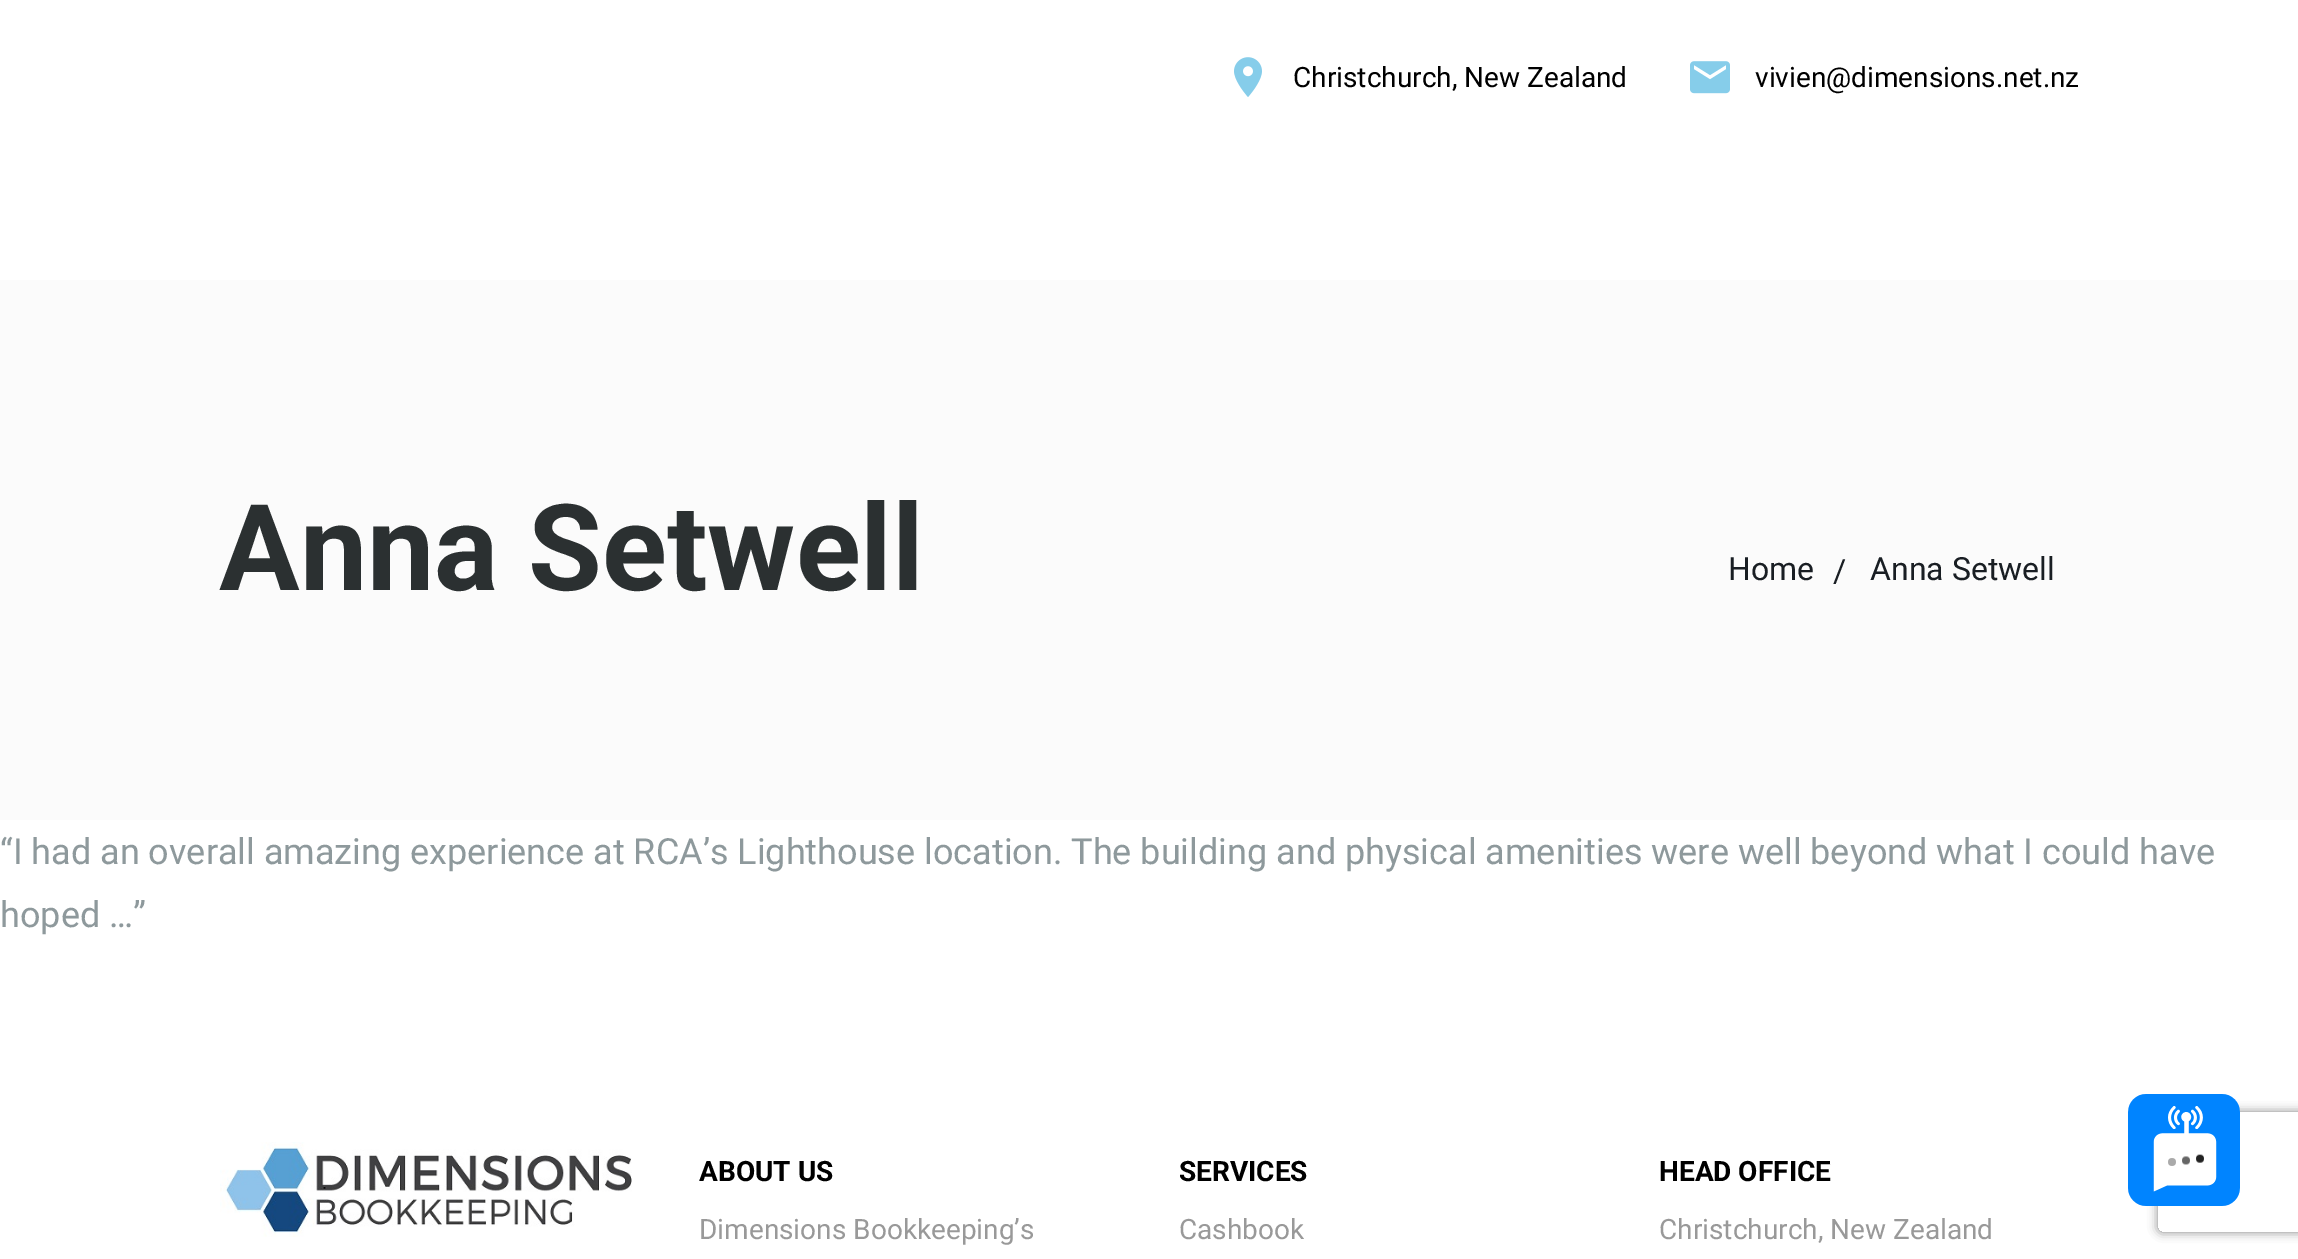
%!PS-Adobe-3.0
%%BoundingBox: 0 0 2298 1259
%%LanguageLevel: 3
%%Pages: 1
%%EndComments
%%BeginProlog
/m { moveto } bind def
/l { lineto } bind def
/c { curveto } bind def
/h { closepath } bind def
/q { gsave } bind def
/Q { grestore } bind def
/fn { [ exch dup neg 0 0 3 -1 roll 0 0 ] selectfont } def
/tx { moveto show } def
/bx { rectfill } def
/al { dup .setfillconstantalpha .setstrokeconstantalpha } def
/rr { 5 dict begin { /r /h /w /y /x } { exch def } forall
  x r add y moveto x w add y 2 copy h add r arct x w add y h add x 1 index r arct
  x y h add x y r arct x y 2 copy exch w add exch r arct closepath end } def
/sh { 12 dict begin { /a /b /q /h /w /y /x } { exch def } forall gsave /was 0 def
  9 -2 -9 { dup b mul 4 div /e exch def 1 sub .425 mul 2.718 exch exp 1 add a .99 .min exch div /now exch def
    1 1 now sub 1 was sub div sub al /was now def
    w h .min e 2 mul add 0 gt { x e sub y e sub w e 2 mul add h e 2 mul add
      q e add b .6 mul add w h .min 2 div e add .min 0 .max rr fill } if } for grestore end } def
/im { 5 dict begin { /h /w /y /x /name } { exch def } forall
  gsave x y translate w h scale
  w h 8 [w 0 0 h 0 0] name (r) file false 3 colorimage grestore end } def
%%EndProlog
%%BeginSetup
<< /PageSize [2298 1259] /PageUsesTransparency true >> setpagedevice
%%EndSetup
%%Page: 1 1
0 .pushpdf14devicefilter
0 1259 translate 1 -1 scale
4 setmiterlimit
1 setgray
0 0 2298 1259 bx
(image0.raw) 1234 57 28 40 im
/Roboto-Regular 28 fn
0 setgray
(Christchurch, New Zealand) 1293 87 tx
(image1.raw) 1690 61 40 33 im
(vivien@dimensions.net.nz) 1755 87 tx
0.984 setgray
0 280 2298 540 bx
/Roboto-Bold 120 fn
0.169 0.188 0.192 setrgbcolor
(Anna Setwell) 219 590 tx
/Roboto-Regular 32 fn
0.098 0.118 0.137 setrgbcolor
(Home) 1728 580 tx
(/) 1833 582 tx
(Anna Setwell) 1870 580 tx
/Roboto-Regular 36 fn
0.557 0.6 0.612 setrgbcolor
(“I had an overall amazing experience at RCA’s Lighthouse location. The building and physical amenities were well beyond what I could have) 0 864 tx
(hoped …”) 0 927 tx
(image2.raw) 220 1142 412 95 im
/Roboto-Bold 28 fn
0 setgray
(ABOUT US) 699 1181 tx
/Roboto-Regular 28 fn
0.6 setgray
(Dimensions Bookkeeping’s) 699 1239 tx
/Roboto-Bold 28 fn
0 setgray
(SERVICES) 1179 1181 tx
/Roboto-Regular 28 fn
0.6 setgray
(Cashbook) 1179 1239 tx
/Roboto-Bold 28 fn
0 setgray
(HEAD OFFICE) 1659 1181 tx
/Roboto-Regular 28 fn
0.6 setgray
(Christchurch, New Zealand) 1659 1239 tx
q
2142 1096 m 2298 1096 l 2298 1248 l 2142 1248 l h 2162 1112 m 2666 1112 l 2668 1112 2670 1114 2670 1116 c 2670 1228 l 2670 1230 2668 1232 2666 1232 c 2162 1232 l 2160 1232 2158 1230 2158 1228 c 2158 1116 l 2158 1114 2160 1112 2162 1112 c h eoclip newpath
0.502 setgray
2158 1112 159 120 4 5 1 sh
Q
(image3.raw) 2128 1094 112 112 im
.poppdf14devicefilter showpage
%%EOF
